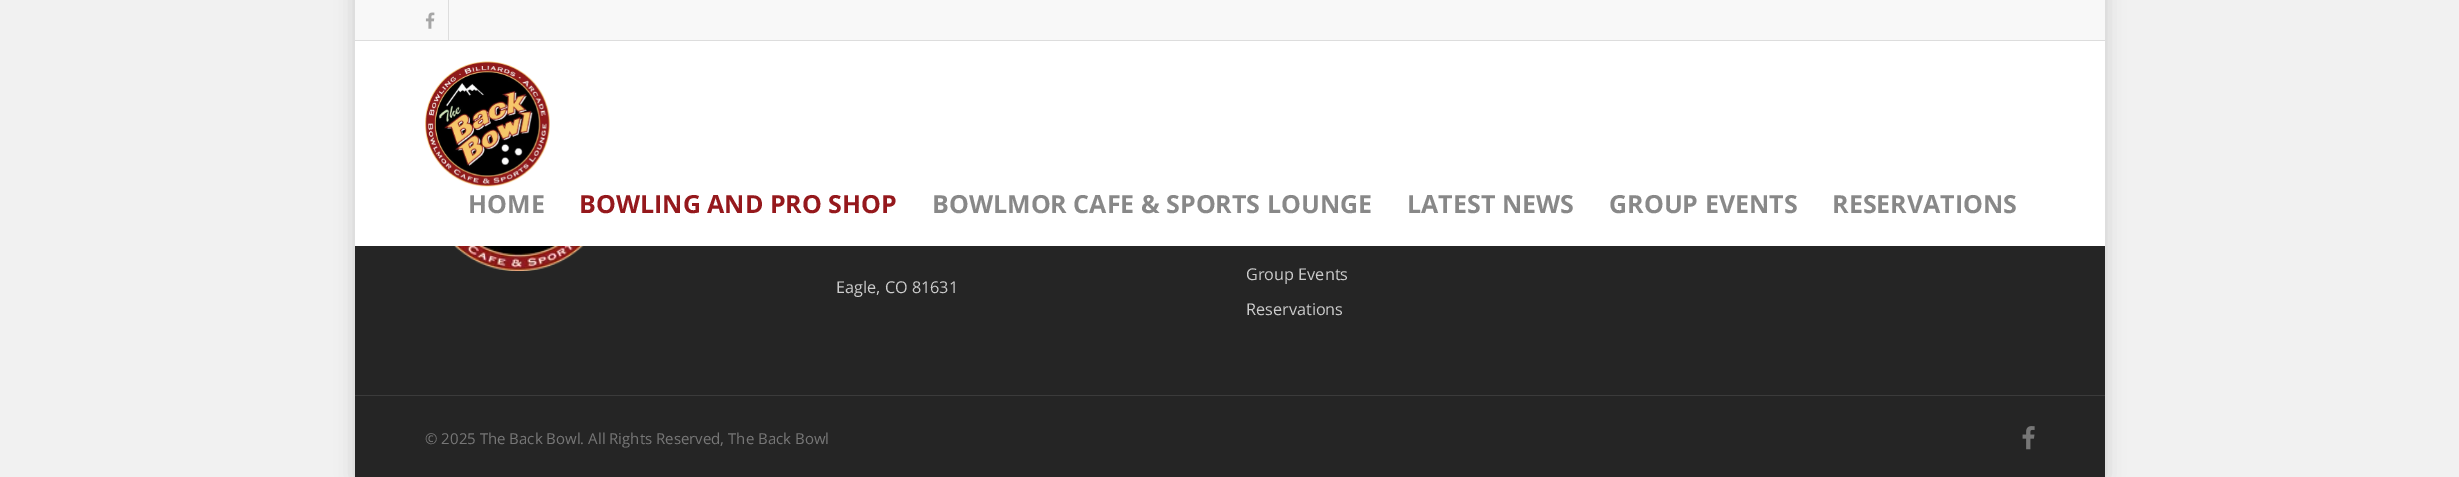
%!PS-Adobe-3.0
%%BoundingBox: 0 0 2459 477
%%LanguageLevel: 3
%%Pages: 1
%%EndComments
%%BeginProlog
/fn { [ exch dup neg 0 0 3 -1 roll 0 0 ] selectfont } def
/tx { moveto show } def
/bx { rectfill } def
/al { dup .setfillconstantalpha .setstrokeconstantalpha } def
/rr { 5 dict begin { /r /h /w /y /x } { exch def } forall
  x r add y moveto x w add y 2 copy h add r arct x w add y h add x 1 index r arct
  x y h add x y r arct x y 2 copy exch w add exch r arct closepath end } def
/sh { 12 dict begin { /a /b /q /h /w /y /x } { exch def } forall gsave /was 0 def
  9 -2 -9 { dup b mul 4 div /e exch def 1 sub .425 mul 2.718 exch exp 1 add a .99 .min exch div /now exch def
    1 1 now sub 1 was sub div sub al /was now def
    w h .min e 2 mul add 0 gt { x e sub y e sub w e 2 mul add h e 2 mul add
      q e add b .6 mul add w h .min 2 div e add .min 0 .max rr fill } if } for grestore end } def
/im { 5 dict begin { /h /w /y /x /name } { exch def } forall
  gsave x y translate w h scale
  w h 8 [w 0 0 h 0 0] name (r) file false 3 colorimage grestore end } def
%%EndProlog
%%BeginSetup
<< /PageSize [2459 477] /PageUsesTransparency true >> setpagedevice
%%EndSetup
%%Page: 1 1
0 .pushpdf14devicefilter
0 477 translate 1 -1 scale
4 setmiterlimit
0.945 setgray
0 0 2459 477 bx
0 setgray
355 -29 1750 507 0 9.5 0.15 sh
0.973 setgray
355 0 1750 40 bx
0.867 setgray
355 40 1750 1 bx
448 0 1 40 bx
(image0.raw) 425 12 10 17 im
1 setgray
355 41 1750 205 bx
(image1.raw) 425 61 125 126 im
/OpenSans-Bold 25 fn
0.533 setgray
(HOME) 468 213 tx
0.584 0.094 0.11 setrgbcolor
(BOWLING AND PRO SHOP) 579 213 tx
0.533 setgray
(BOWLMOR CAFE & SPORTS LOUNGE) 932 213 tx
(LATEST NEWS) 1407 213 tx
(GROUP EVENTS) 1609 213 tx
(RESERVATIONS) 1832 213 tx
0.145 setgray
355 246 1750 231 bx
(image2.raw) 454 246 130 25 im
/OpenSans-Regular 16.25 fn
0.8 setgray
(Eagle, CO 81631) 836 293 tx
(Group Events) 1246 280 tx
(Reservations) 1246 315 tx
0.231 setgray
355 395 1750 1 bx
/OpenSans-Regular 15 fn
0.467 setgray
(© 2025 The Back Bowl. All Rights Reserved, The Back Bowl) 425 444 tx
(image3.raw) 2022 426 13 24 im
.poppdf14devicefilter showpage
%%EOF
